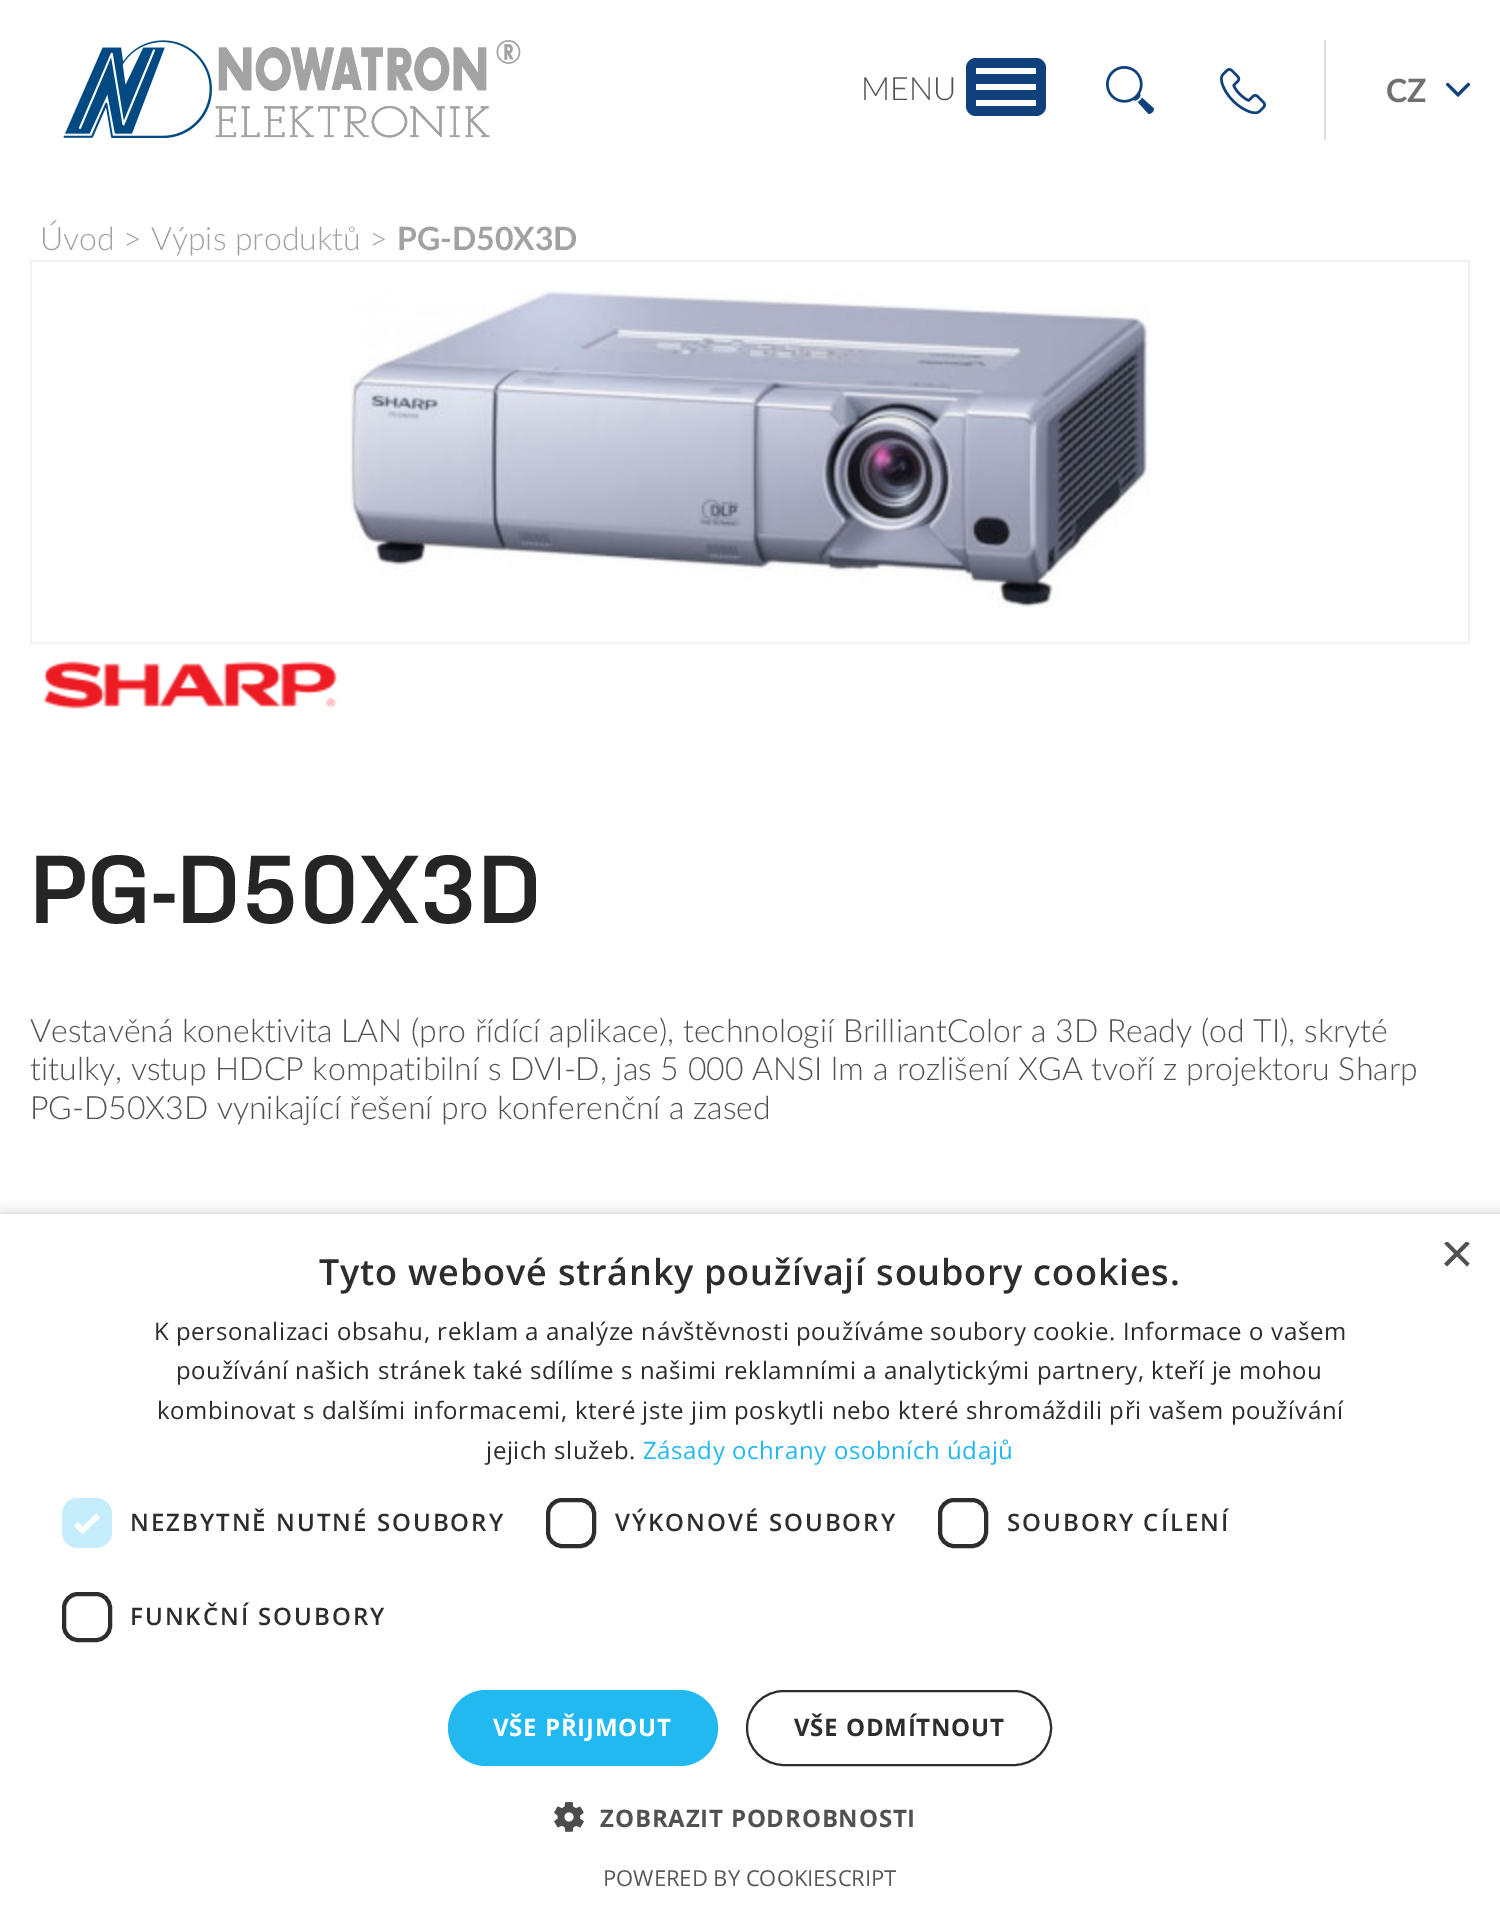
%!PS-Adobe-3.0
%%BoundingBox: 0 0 1500 1909
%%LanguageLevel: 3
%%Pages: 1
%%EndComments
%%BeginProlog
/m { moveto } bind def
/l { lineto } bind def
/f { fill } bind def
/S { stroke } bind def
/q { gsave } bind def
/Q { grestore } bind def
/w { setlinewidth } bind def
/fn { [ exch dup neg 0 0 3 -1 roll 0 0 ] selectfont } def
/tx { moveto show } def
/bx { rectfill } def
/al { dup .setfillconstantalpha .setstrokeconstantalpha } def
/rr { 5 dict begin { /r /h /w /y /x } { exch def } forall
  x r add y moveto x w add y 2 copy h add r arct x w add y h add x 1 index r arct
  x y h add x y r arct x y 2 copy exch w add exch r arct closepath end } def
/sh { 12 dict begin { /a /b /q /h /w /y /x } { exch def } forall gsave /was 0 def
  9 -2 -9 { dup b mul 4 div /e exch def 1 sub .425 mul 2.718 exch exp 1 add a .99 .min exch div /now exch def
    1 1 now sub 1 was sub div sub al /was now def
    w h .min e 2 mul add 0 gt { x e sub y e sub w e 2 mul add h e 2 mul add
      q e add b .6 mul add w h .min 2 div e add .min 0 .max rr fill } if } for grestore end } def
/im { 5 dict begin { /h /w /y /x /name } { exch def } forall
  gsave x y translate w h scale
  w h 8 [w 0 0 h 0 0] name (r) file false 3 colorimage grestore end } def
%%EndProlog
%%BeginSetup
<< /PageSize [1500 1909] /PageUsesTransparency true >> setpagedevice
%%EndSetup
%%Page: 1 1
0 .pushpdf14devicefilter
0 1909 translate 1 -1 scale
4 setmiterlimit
1 setgray
0 0 1500 1909 bx
(image0.raw) 63 40 458 98 im
0.063 0.255 0.486 setrgbcolor
966 58 80 58 10 rr f
/Lato-Light 32 fn
0.318 setgray
(MENU) 861 100 tx
1 setgray
976 84 60 6 bx
976 68 60 6 bx
976 100 60 6 bx
(image1.raw) 1106 66 48 48 im
0.859 0.871 0.886 setrgbcolor
1324 40 2 100 bx
(image2.raw) 1220 68 46 46 im
(image3.raw) 1446 82 24 15 im
/Lato-Bold 32 fn
0.439 setgray
(CZ) 1386 102 tx
/Lato-Light 32 fn
0.635 setgray
(Úvod > Výpis produktů >) 40 250 tx
/Lato-Bold 32 fn
(PG-D50X3D) 397 250 tx
0.949 setgray
2 w
31 261 1438 382 rectstroke
(image4.raw) 350 290 800 318 im
(image5.raw) 43 661 294 48 im
/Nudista-SemiBold 96 fn
0.145 setgray
(PG-D50X3D) 30 923 tx
/Lato-Light 32 fn
0.318 setgray
(Vestavěná konektivita LAN \(pro řídící aplikace\), technologií BrilliantColor a 3D Ready \(od TI\), skryté) 30 1042 tx
(titulky, vstup HDCP kompatibilní s DVI-D, jas 5 000 ANSI lm a rozlišení XGA tvoří z projektoru Sharp) 30 1080 tx
(PG-D50X3D vynikající řešení pro konferenční a zased) 30 1119 tx
0 setgray
2 1218 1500 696 0 8 0.35 sh
1 setgray
0 1214 1500 695 bx
q
1440 1242 30 30 rectclip
/LiberationSans-Regular 58 fn
0.318 setgray
(×) 1440 1273 tx
Q
/OpenSans-SemiBold 36 fn
0.176 setgray
319 1285 m 0.8 0 (Tyto webové stránky používají soubory cookies.) ashow
/OpenSans-Regular 24 fn
154 1340 m 0.6 0 (K personalizaci obsahu, reklam a analýze návštěvnosti používáme soubory cookie. Informace o vašem) ashow
176 1379 m 0.6 0 (používání našich stránek také sdílíme s našimi reklamními a analytickými partnery, kteří je mohou) ashow
157 1419 m 0.6 0 (kombinovat s dalšími informacemi, které jste jim poskytli nebo které shromáždili při vašem používání) ashow
486 1459 m 0.6 0 (jejich služeb.) ashow
0.133 0.722 0.941 setrgbcolor
643 1459 m 0.6 0 (Zásady ochrany osobních údajů) ashow
0.776 0.929 0.984 setrgbcolor
62 1498 50 50 16 rr f
1 setgray
5.2 w
76 1524 m 82.5 1530.5 l 98 1515.5 l S
/OpenSans-SemiBold 24 fn
0.176 setgray
130 1531 m 2 0 (NEZBYTNĚ NUTNÉ SOUBORY) ashow
4 w
548 1500 46 46 14 rr S
615 1531 m 2 0 (VÝKONOVÉ SOUBORY) ashow
940 1500 46 46 14 rr S
1007 1531 m 2 0 (SOUBORY CÍLENÍ) ashow
64 1594 46 46 14 rr S
130 1625 m 2 0 (FUNKČNÍ SOUBORY) ashow
0.133 0.722 0.941 setrgbcolor
448 1690 270 76 38 rr f
/OpenSans-Bold 24 fn
1 setgray
493 1736 m 0.8 0 (VŠE PŘIJMOUT) ashow
0.176 setgray
2 w
747 1691 304 74 37 rr S
794 1736 m 0.8 0 (VŠE ODMÍTNOUT) ashow
(image6.raw) 554 1802 30 30 im
0.318 setgray
600 1827 m 0.8 0 (ZOBRAZIT PODROBNOSTI) ashow
/OpenSans-Regular 22 fn
0.341 setgray
(POWERED BY COOKIESCRIPT) 603 1886 tx
.poppdf14devicefilter showpage
%%EOF
